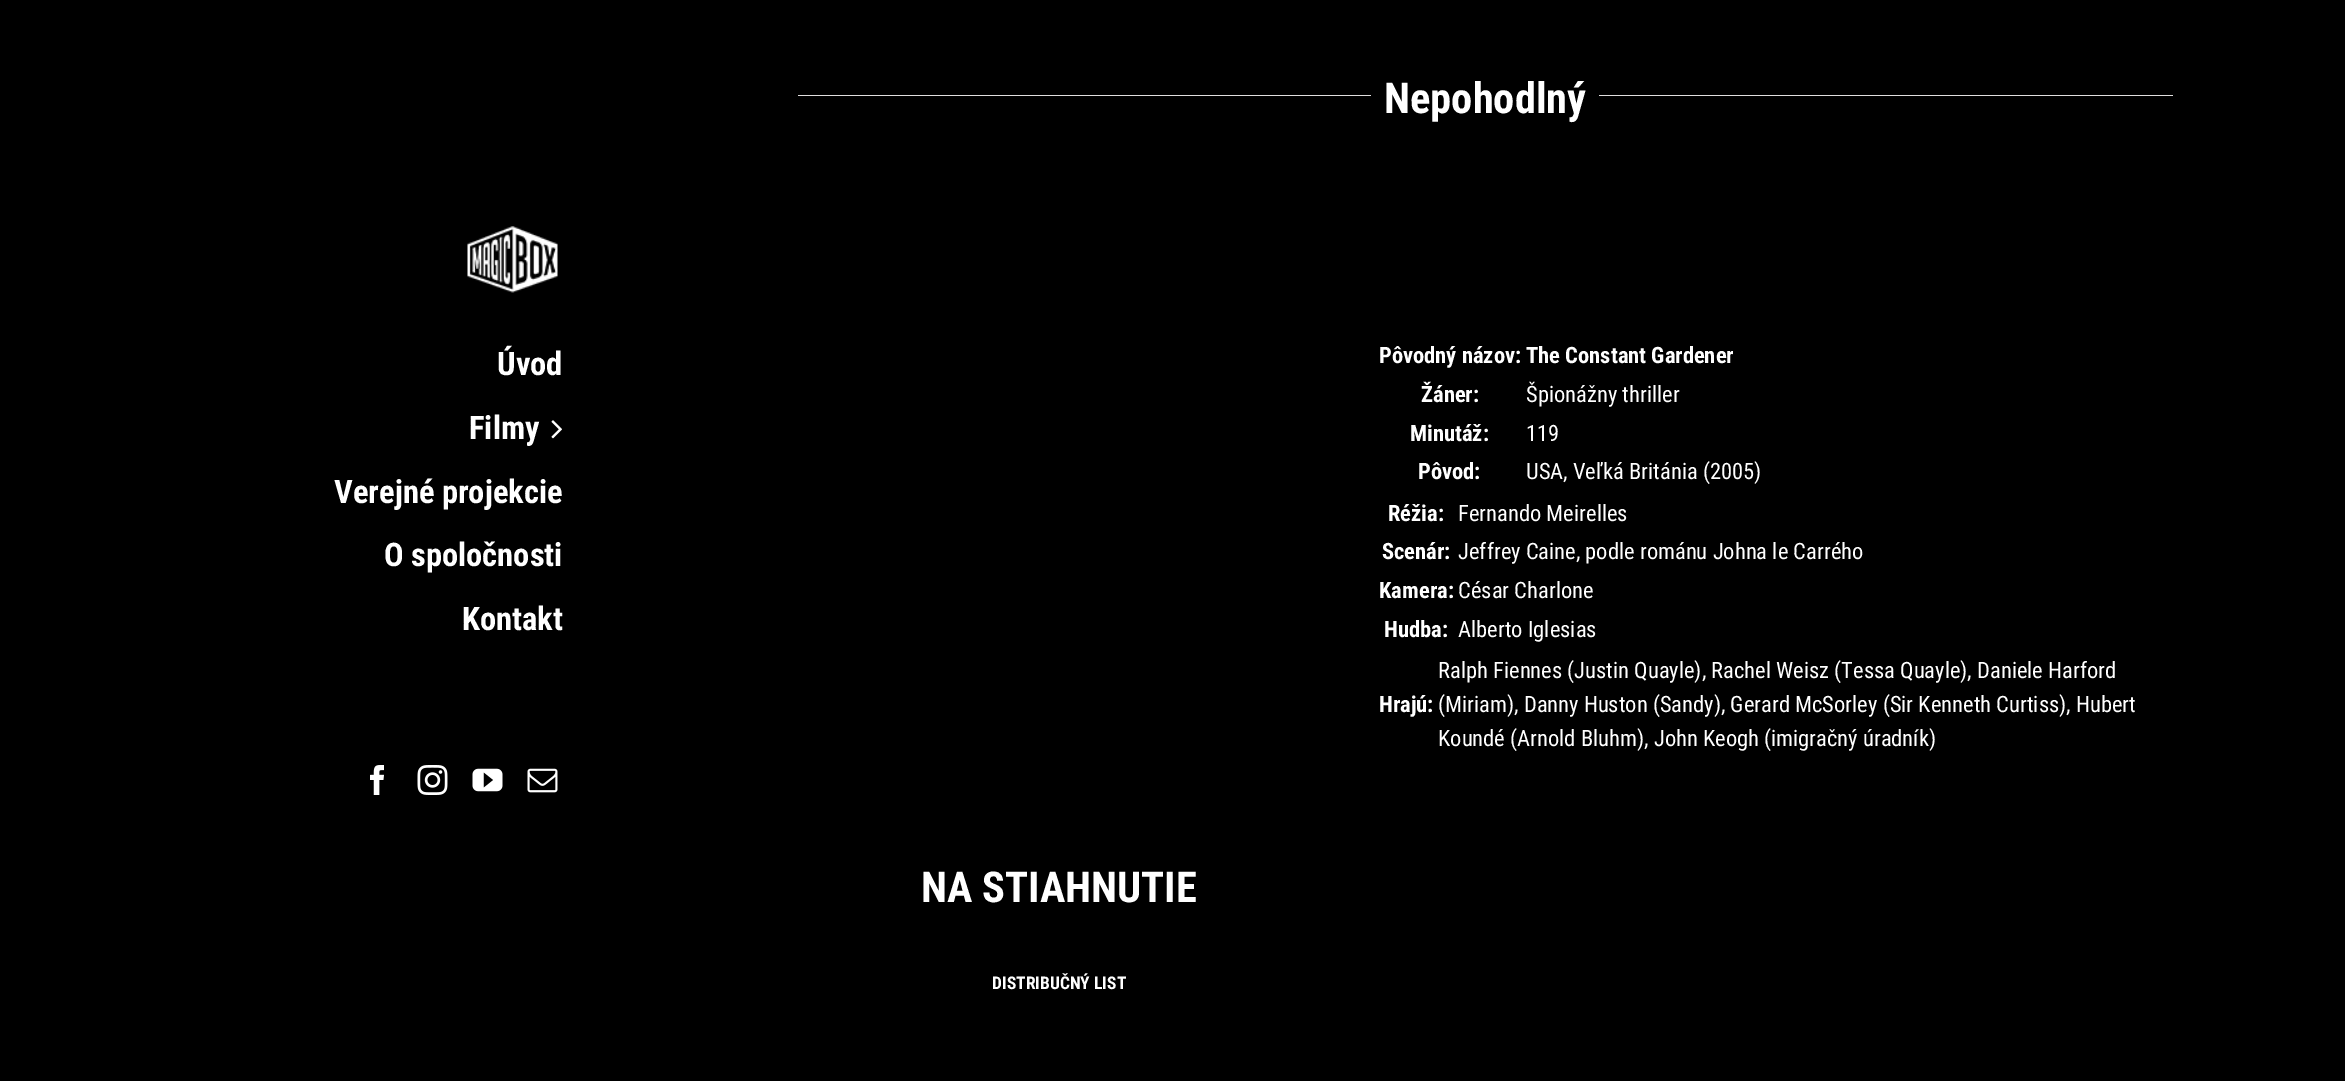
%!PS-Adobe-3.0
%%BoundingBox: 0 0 2345 1081
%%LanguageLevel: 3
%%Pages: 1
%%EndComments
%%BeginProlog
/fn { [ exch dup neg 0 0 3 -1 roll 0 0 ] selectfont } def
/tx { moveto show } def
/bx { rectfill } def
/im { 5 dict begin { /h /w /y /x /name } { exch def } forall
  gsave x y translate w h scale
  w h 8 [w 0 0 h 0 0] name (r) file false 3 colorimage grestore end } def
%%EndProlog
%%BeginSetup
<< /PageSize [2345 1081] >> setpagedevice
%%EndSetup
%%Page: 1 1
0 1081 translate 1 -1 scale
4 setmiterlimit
0 setgray
0 0 2345 1081 bx
(image0.raw) 467 226 91 67 im
/RobotoCondensed-Bold 32.5 fn
1 setgray
(Úvod) 497 375 tx
(Filmy) 469 439 tx
(image1.raw) 551 420 11 19 im
(Verejné projekcie) 334 503 tx
(O spoločnosti) 384 566 tx
(Kontakt) 462 630 tx
(image2.raw) 370 765 14 30 im
(image3.raw) 417 765 31 30 im
(image4.raw) 472 768 31 24 im
(image5.raw) 527 768 31 25 im
0.878 0.871 0.871 setrgbcolor
798 95 573 1 bx
/RobotoCondensed-Bold 42.5 fn
1 setgray
(Nepohodlný) 1384 113 tx
0.878 0.871 0.871 setrgbcolor
1599 95 574 1 bx
/RobotoCondensed-Bold 22.5 fn
1 setgray
(Pôvodný názov: The Constant Gardener) 1379 363 tx
(Žáner:) 1421 402 tx
/RobotoCondensed-Regular 22.5 fn
(Špionážny thriller) 1526 402 tx
/RobotoCondensed-Bold 22.5 fn
(Minutáž:) 1410 441 tx
/RobotoCondensed-Regular 22.5 fn
(119) 1526 441 tx
/RobotoCondensed-Bold 22.5 fn
(Pôvod:) 1418 479 tx
/RobotoCondensed-Regular 22.5 fn
(USA, Veľká Británia \(2005\)) 1526 479 tx
/RobotoCondensed-Bold 22.5 fn
(Réžia:) 1388 521 tx
/RobotoCondensed-Regular 22.5 fn
(Fernando Meirelles) 1458 521 tx
/RobotoCondensed-Bold 22.5 fn
(Scenár:) 1382 559 tx
/RobotoCondensed-Regular 22.5 fn
(Jeffrey Caine, podle románu Johna le Carrého) 1458 559 tx
/RobotoCondensed-Bold 22.5 fn
(Kamera:) 1379 598 tx
/RobotoCondensed-Regular 22.5 fn
(César Charlone) 1458 598 tx
/RobotoCondensed-Bold 22.5 fn
(Hudba:) 1384 637 tx
/RobotoCondensed-Regular 22.5 fn
(Alberto Iglesias) 1458 637 tx
/RobotoCondensed-Bold 22.5 fn
(Hrajú:) 1379 712 tx
/RobotoCondensed-Regular 22.5 fn
(Ralph Fiennes \(Justin Quayle\), Rachel Weisz \(Tessa Quayle\), Daniele Harford) 1438 678 tx
(\(Miriam\), Danny Huston \(Sandy\), Gerard McSorley \(Sir Kenneth Curtiss\), Hubert) 1438 712 tx
(Koundé \(Arnold Bluhm\), John Keogh \(imigračný úradník\)) 1438 746 tx
/RobotoCondensed-Bold 42.5 fn
(NA STIAHNUTIE) 921 902 tx
/RobotoCondensed-Bold 17.5 fn
(DISTRIBUČNÝ LIST) 992 989 tx
showpage
%%EOF
